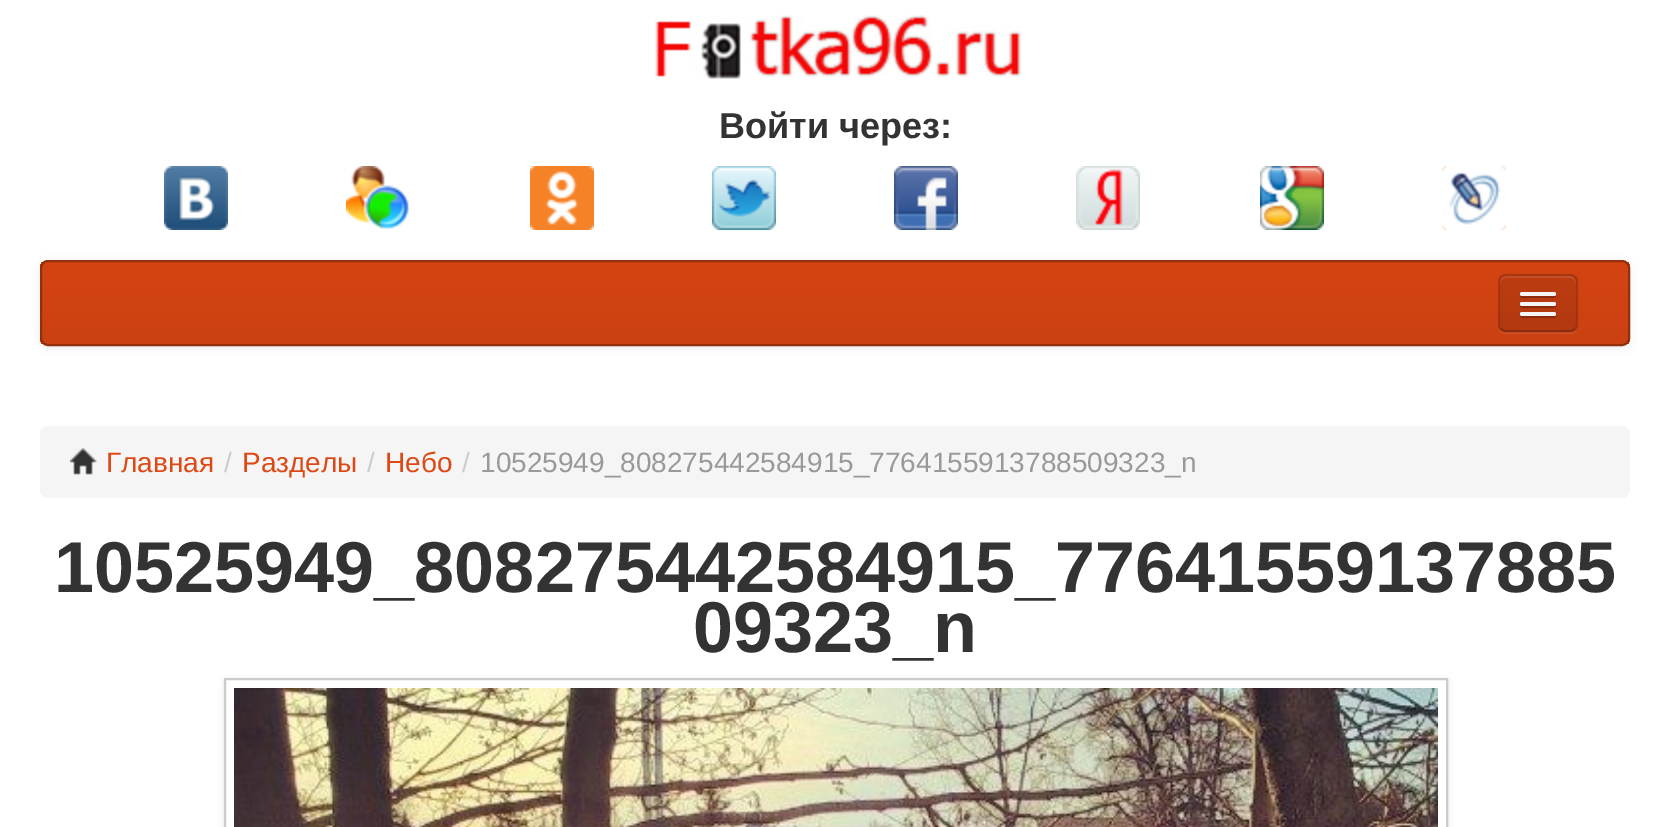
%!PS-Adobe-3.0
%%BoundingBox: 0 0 1669 827
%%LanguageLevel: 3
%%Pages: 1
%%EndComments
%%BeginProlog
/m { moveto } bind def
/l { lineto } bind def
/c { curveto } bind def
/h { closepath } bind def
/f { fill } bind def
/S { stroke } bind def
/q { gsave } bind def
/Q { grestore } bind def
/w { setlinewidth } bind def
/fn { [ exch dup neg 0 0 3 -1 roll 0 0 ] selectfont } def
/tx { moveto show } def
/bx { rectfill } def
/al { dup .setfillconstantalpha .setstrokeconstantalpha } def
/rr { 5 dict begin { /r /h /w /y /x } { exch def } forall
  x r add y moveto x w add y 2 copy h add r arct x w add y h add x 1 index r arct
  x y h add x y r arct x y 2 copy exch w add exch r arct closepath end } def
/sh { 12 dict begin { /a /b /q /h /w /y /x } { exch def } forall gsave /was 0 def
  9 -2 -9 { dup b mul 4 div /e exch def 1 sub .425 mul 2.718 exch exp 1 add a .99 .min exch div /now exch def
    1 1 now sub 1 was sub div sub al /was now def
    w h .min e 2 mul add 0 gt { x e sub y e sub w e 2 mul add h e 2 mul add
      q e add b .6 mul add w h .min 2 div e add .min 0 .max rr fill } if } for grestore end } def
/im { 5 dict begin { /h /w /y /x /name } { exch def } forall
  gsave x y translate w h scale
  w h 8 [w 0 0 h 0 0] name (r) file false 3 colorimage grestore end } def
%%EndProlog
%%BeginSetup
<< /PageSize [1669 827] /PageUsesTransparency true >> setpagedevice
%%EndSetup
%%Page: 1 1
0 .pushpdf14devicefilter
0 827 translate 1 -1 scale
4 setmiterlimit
1 setgray
0 0 1669 827 bx
(image0.raw) 652 15 370 64 im
/LiberationSans-Bold 36 fn
0.2 setgray
(Войти через:) 719 138 tx
(image1.raw) 164 166 64 64 im
(image2.raw) 346 166 64 64 im
(image3.raw) 530 166 64 64 im
(image4.raw) 712 166 64 64 im
(image5.raw) 894 166 64 64 im
(image6.raw) 1076 166 64 64 im
(image7.raw) 1260 166 64 64 im
(image8.raw) 1442 166 64 64 im
0 setgray
40 262 1590 86 8 4 0.07 sh
q
40 260 1590 86 8 rr clip newpath
q 40 262 m 1630 262 l 1630 344 l 40 344 l h clip newpath
<< /ShadingType 2 /ColorSpace /DeviceRGB /Coords [835 262 835 344] /Extend [true true] /Function << /FunctionType 2 /Domain [0 1] /C0 [0.831 0.267 0.075] /C1 [0.796 0.255 0.071] /N 1 >> >> shfill Q
Q
0.573 0.184 0.051 setrgbcolor
2 w
41 261 1588 84 7 rr S
0.816 0.31 0.141 setrgbcolor
1498 324 m 1498 336 1507 334 1517 334 c 1559 334 l 1569 334 1578 336 1578 324 c 1578 328 1574 332 1570 332 c 1506 332 l 1502 332 1498 328 1498 324 c h f
0.725 0.231 0.067 setrgbcolor
1498 274 80 58 8 rr f
q
1498 274 80 58 8 rr clip newpath
q 1498 276 m 1578 276 l 1578 330 l 1498 330 l h clip newpath
<< /ShadingType 2 /ColorSpace /DeviceRGB /Coords [1538 276 1538 330] /Extend [true true] /Function << /FunctionType 2 /Domain [0 1] /C0 [0.741 0.235 0.067] /C1 [0.702 0.224 0.063] /N 1 >> >> shfill Q
Q
0.769 0.314 0.161 setrgbcolor
1506 278 m 1570 278 l 1573 278 1576 281 1576 284 c 1576 274 1568 276 1559 276 c 1517 276 l 1508 276 1500 274 1500 284 c 1500 281 1503 278 1506 278 c h f
0.25 al
0 setgray
1575 329 m 1573.5 330.5 1572 331 1570 331 c 1506 331 l 1504 331 1502.5 330.5 1501 329 c S
0.1 al
1501 329 m 1499.5 327.5 1499 326 1499 324 c 1499 282 l 1499 280 1499.5 278.5 1501 277 c 1502.5 275.5 1504 275 1506 275 c 1570 275 l 1572 275 1573.5 275.5 1575 277 c 1576.5 278.5 1577 280 1577 282 c 1577 324 l 1577 326 1576.5 327.5 1575 329 c S
1 al
0.545 0.173 0.051 setrgbcolor
1520.5 295 m 1518 299 1527 298 1527.5 298 c 1548.5 298 l 1549 298 1558 299 1555.5 295 c 1555.5 295.5 1554.5 296 1554 296 c 1522 296 l 1521.5 296 1520.5 295.5 1520.5 295 c h f
0.961 setgray
1520 292 36 4 2 rr f
0.537 0.173 0.047 setrgbcolor
1520.5 305 m 1518 309 1527 308 1527.5 308 c 1548.5 308 l 1549 308 1558 309 1555.5 305 c 1555.5 305.5 1554.5 306 1554 306 c 1522 306 l 1521.5 306 1520.5 305.5 1520.5 305 c h f
0.961 setgray
1520 302 36 4 2 rr f
0.533 0.173 0.047 setrgbcolor
1520.5 315 m 1518 319 1527 318 1527.5 318 c 1548.5 318 l 1549 318 1558 319 1555.5 315 c 1555.5 315.5 1554.5 316 1554 316 c 1522 316 l 1521.5 316 1520.5 315.5 1520.5 315 c h f
0.961 setgray
1520 312 36 4 2 rr f
40 426 1590 72 8 rr f
(image9.raw) 70 448 27 27 im
/LiberationSans-Regular 28 fn
0.867 0.282 0.078 setrgbcolor
(Главная) 106 472 tx
0.8 setgray
(/) 224 472 tx
0.867 0.282 0.078 setrgbcolor
(Разделы) 242 472 tx
0.8 setgray
(/) 367 472 tx
0.867 0.282 0.078 setrgbcolor
(Небо) 385 472 tx
0.8 setgray
(/) 462 472 tx
0.6 setgray
(10525949_808275442584915_7764155913788509323_n) 480 472 tx
/LiberationSans-Bold 72 fn
0.2 setgray
(10525949_808275442584915_77641559137885) 54 592 tx
(09323_n) 693 652 tx
q
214 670 m 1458 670 l 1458 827 l 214 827 l h 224 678 m 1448 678 l 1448 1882 l 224 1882 l h eoclip newpath
0 setgray
224 680 1224 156 0 3 0.1 sh
Q
(image10.raw) 234 688 1204 139 im
0.8 setgray
225 679 1222 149 rectstroke
.poppdf14devicefilter showpage
%%EOF
